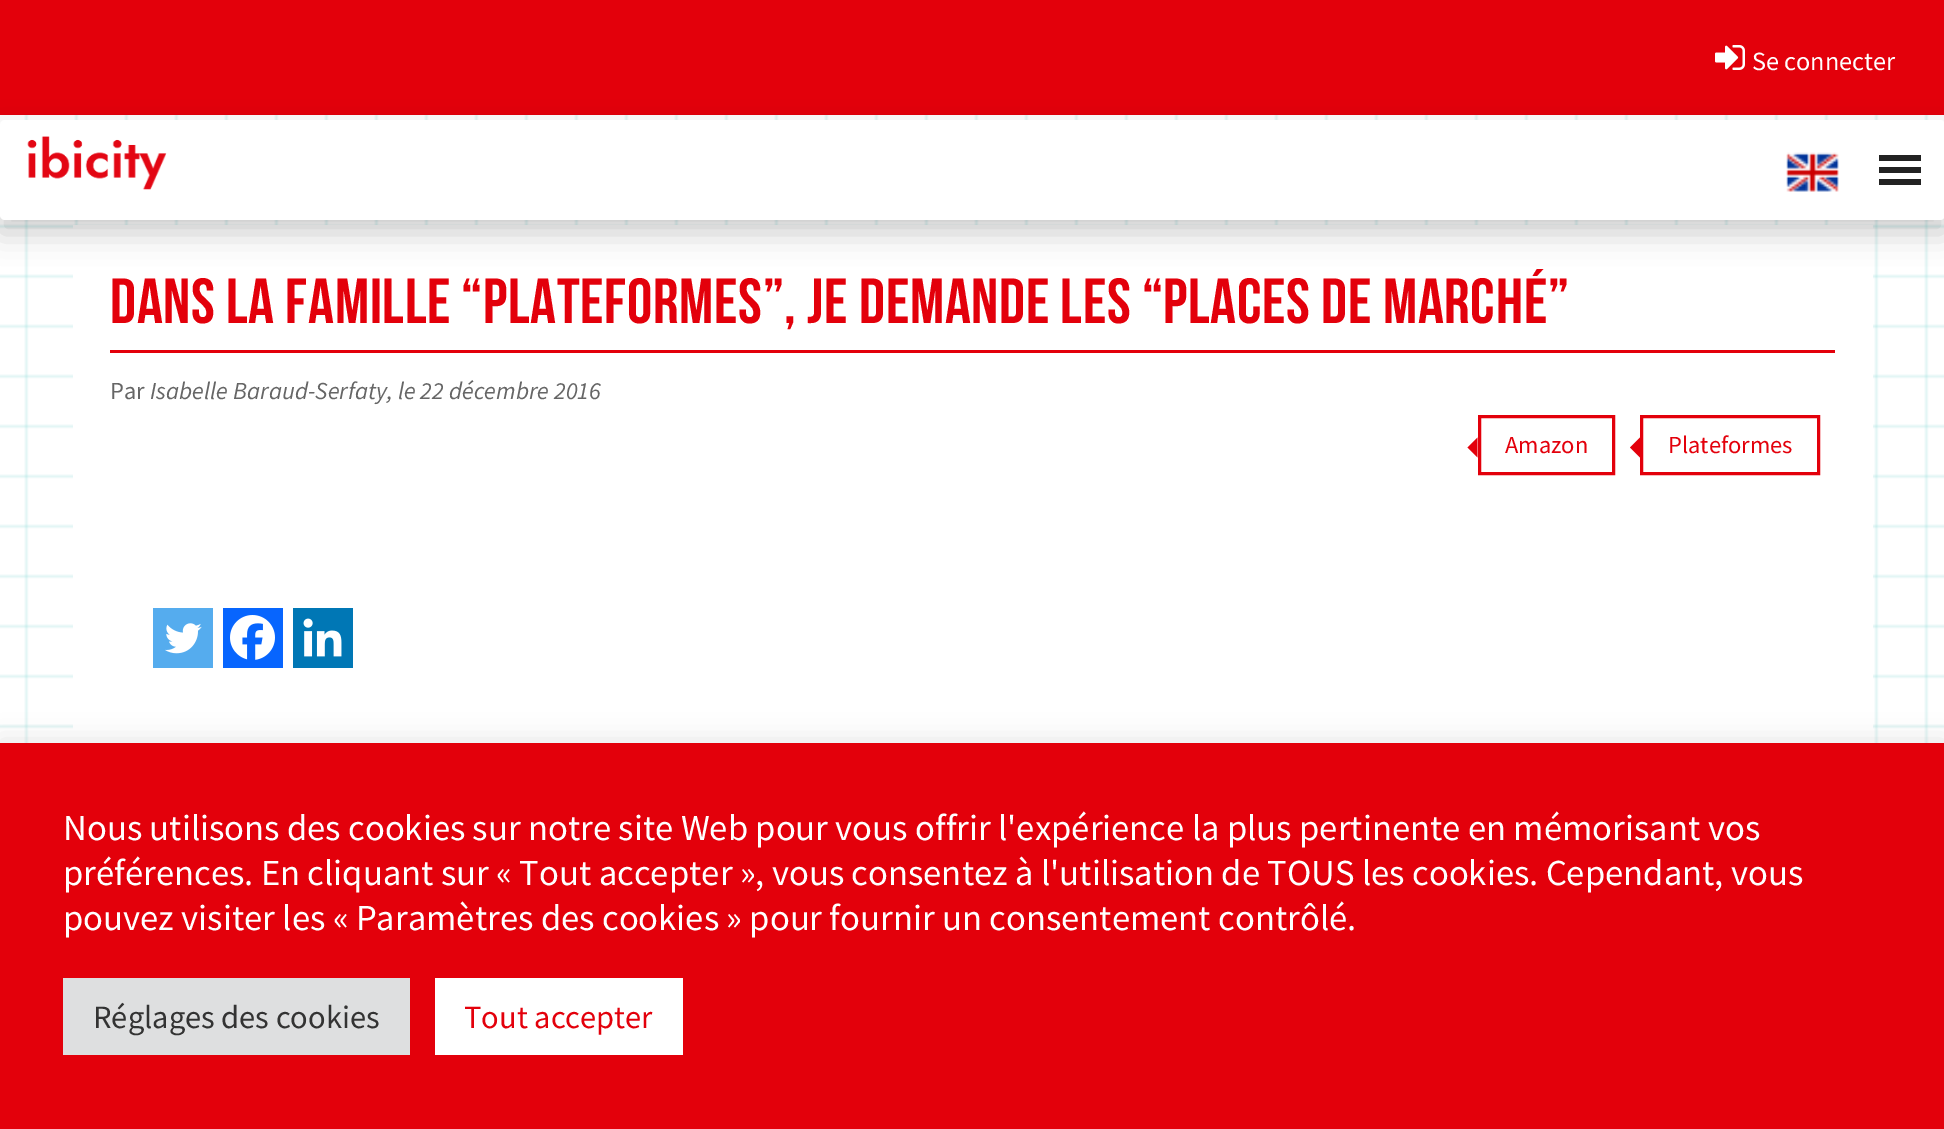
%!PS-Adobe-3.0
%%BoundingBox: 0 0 1944 1129
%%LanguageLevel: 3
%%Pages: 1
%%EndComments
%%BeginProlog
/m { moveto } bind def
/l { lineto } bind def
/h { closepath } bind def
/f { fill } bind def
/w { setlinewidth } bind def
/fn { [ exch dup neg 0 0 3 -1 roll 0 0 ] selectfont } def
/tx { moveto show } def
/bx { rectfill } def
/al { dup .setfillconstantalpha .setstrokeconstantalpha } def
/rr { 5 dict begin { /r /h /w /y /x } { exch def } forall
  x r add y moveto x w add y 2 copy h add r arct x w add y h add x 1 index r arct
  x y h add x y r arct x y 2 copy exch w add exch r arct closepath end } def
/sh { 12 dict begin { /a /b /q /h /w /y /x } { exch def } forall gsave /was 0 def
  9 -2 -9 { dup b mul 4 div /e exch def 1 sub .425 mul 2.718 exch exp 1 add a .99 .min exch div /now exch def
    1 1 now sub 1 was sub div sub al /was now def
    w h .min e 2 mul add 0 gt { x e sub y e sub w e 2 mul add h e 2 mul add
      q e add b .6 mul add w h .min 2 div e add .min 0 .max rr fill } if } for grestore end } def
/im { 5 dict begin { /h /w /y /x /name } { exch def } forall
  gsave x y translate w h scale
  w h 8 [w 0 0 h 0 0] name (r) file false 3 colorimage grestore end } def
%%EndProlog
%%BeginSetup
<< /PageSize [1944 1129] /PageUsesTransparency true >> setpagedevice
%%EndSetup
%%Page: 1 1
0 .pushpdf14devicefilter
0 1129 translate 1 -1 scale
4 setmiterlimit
1 setgray
0 0 1944 1129 bx
0.89 0 0.043 setrgbcolor
0 0 1944 115 bx
(image0.raw) 1715 45 30 25 im
/SourceSansPro-Regular 26.25 fn
1 setgray
(Se connecter) 1752 70 tx
(image3.raw) 0 115 1944 628 im
73 225 1800 518 bx
0 setgray
0 133 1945 100 0 15 0.2 sh
1 setgray
0 120 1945 100 5 rr f
0.133 setgray
1879 185 m 1921 185 l 1921 179 l 1879 179 l h 1879 155 m 1879 161 l 1921 161 l 1921 155 l h 1879 173 m 1921 173 l 1921 167 l 1879 167 l h f
(image1.raw) 27 136 140 54 im
(image2.raw) 1786 152 53 40 im
0.89 0 0.043 setrgbcolor
110 350 1725 3 bx
/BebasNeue-Regular 63.7 fn
110 323 m 0.65 0 (DANS LA FAMILLE “PLATEFORMES”, JE DEMANDE LES “PLACES DE MARCHÉ”) ashow
/SourceSansPro-Regular 24.5 fn
0.4 setgray
(Par) 110 399 tx
/SourceSansPro-Italic 24.5 fn
(Isabelle Baraud-Serfaty, le 22 décembre 2016) 150 399 tx
0.89 0 0.043 setrgbcolor
3 w
1479.5 416.5 134 57 rectstroke
1477.5 437.5 m 1477.5 457.5 l 1467.5 447.5 l h f
/SourceSansPro-Regular 24.5 fn
(Amazon) 1505 453 tx
1641.5 416.5 177 57 rectstroke
1640 437.5 m 1640 457.5 l 1630 447.5 l h f
(Plateformes) 1668 453 tx
0.333 0.675 0.933 setrgbcolor
153 608 60 60 bx
(image4.raw) 165 623 37 31 im
0.027 0.396 0.996 setrgbcolor
223 608 60 60 bx
(image5.raw) 230 615 45 45 im
0 0.467 0.71 setrgbcolor
293 608 60 60 bx
(image6.raw) 303 618 39 39 im
0.675 0.671 0.671 setrgbcolor
0 740 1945 388 0 12.5 0.3 sh
0.89 0 0.043 setrgbcolor
0 743 1944 386 bx
/SourceSansPro-Regular 36.65 fn
1 setgray
(Nous utilisons des cookies sur notre site Web pour vous offrir l'expérience la plus pertinente en mémorisant vos) 63 840 tx
(préférences. En cliquant sur « Tout accepter », vous consentez à l'utilisation de TOUS les cookies. Cependant, vous) 63 885 tx
(pouvez visiter les « Paramètres des cookies » pour fournir un consentement contrôlé.) 63 930 tx
0.871 0.875 0.878 setrgbcolor
63 978 347 77 bx
/SourceSansPro-Regular 32.5 fn
0.2 setgray
(Réglages des cookies) 93 1028 tx
1 setgray
435 978 248 77 bx
0.89 0 0.043 setrgbcolor
(Tout accepter) 464 1028 tx
.poppdf14devicefilter showpage
%%EOF
